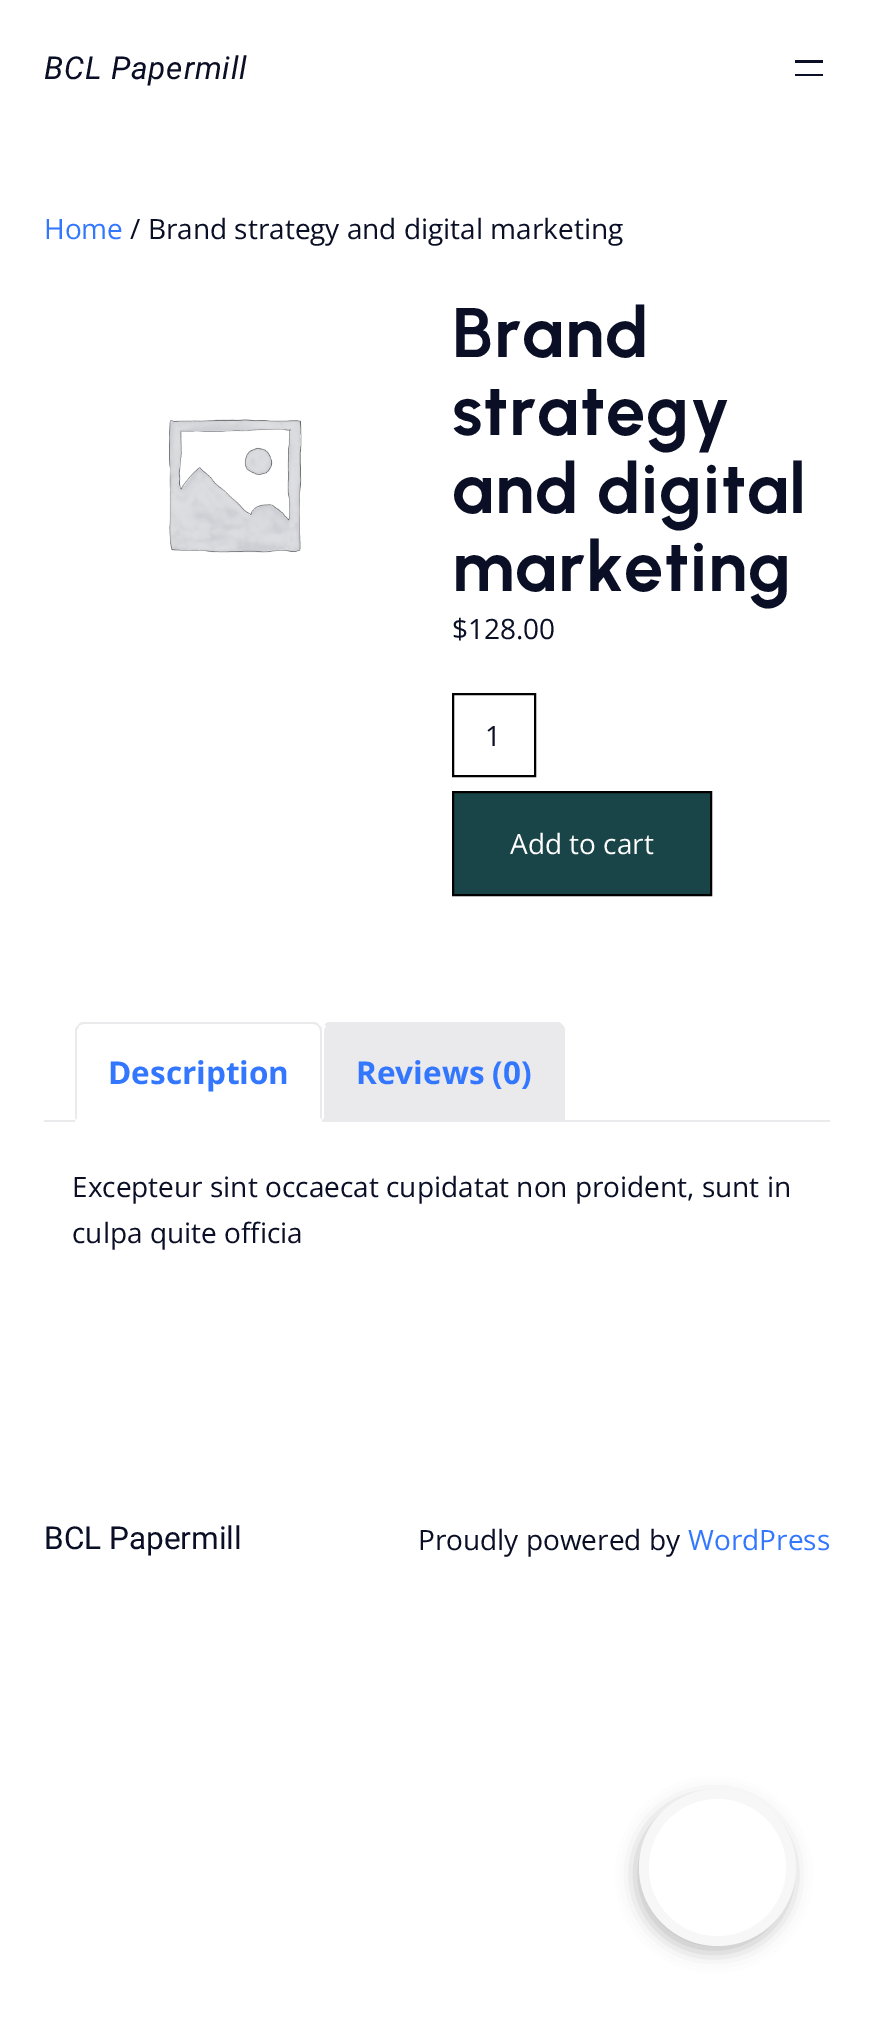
%!PS-Adobe-3.0
%%BoundingBox: 0 0 873 2023
%%LanguageLevel: 3
%%Pages: 1
%%EndComments
%%BeginProlog
/m { moveto } bind def
/l { lineto } bind def
/c { curveto } bind def
/h { closepath } bind def
/f { fill } bind def
/S { stroke } bind def
/q { gsave } bind def
/Q { grestore } bind def
/w { setlinewidth } bind def
/fn { [ exch dup neg 0 0 3 -1 roll 0 0 ] selectfont } def
/tx { moveto show } def
/bx { rectfill } def
/al { dup .setfillconstantalpha .setstrokeconstantalpha } def
/ci { newpath 0 360 arc closepath } def
/rr { 5 dict begin { /r /h /w /y /x } { exch def } forall
  x r add y moveto x w add y 2 copy h add r arct x w add y h add x 1 index r arct
  x y h add x y r arct x y 2 copy exch w add exch r arct closepath end } def
/sh { 12 dict begin { /a /b /q /h /w /y /x } { exch def } forall gsave /was 0 def
  9 -2 -9 { dup b mul 4 div /e exch def 1 sub .425 mul 2.718 exch exp 1 add a .99 .min exch div /now exch def
    1 1 now sub 1 was sub div sub al /was now def
    w h .min e 2 mul add 0 gt { x e sub y e sub w e 2 mul add h e 2 mul add
      q e add b .6 mul add w h .min 2 div e add .min 0 .max rr fill } if } for grestore end } def
/im { 5 dict begin { /h /w /y /x /name } { exch def } forall
  gsave x y translate w h scale
  w h 8 [w 0 0 h 0 0] name (r) file false 3 colorimage grestore end } def
%%EndProlog
%%BeginSetup
<< /PageSize [873 2023] /PageUsesTransparency true >> setpagedevice
%%EndSetup
%%Page: 1 1
0 .pushpdf14devicefilter
0 2023 translate 1 -1 scale
4 setmiterlimit
1 setgray
0 0 873 2023 bx
/Roboto-Italic 31.5 fn
0.039 0.059 0.149 setrgbcolor
44 79 m 0.9 0 (BCL Papermill) ashow
795 60 28 3 bx
795 74 28 2 bx
/OpenSans-Regular 28 fn
0.2 0.467 1 setrgbcolor
(Home) 44 239 tx
0.039 0.059 0.149 setrgbcolor
(/ Brand strategy and digital marketing) 130 239 tx
(image0.raw) 168 419 134 134 im
/Urbanist-Bold 70 fn
452 357 m 0.9 0 (Brand) ashow
452 435 m 0.9 0 (strategy) ashow
452 513 m 0.9 0 (and digital) ashow
452 591 m 0.9 0 (marketing) ashow
/OpenSans-Regular 28 fn
($128.00) 452 639 tx
0 setgray
2 w
453 694 82 82 rectstroke
0.039 0.059 0.149 setrgbcolor
(1) 485 746 tx
0.102 0.271 0.282 setrgbcolor
453 792 m 711 792 l 711 895 l 453 895 l h q f Q
0 setgray
S
1 setgray
(Add to cart) 510 854 tx
0.918 0.914 0.922 setrgbcolor
44 1120 786 2 bx
1 setgray
75 1031 m 75 1122 l 322 1122 l 322 1120 l 75 1120 l h f
0.918 0.914 0.922 setrgbcolor
84 1022 m 82 1022 79 1023 78 1025 c 79 1026 l 80 1025 82 1024 84 1024 c 313 1024 l 315 1024 317 1025 318 1026 c 319 1025 l 318 1023 316 1022 313 1022 c h f
322 1120 m 322 1031 l 322 1028 321 1026 319 1025 c 318 1026 l 319 1027 320 1029 320 1031 c 320 1118 l h f
1 setgray
322 1120 m 320 1118 l 77 1118 l 75 1120 l h f
0.918 0.914 0.922 setrgbcolor
75 1120 m 75 1029 l 76 1027 77 1026 78 1025 c 79 1026 l 77 1030 l 77 1118 l h f
/OpenSans-Bold 31.5 fn
0.2 0.467 1 setrgbcolor
(Description) 108 1084 tx
0.918 0.914 0.922 setrgbcolor
331 1022 m 556 1022 l 561 1022 565 1026 565 1031 c 565 1120 l 322 1120 l 322 1031 l 322 1026 326 1022 331 1022 c h f
331 1022 m 328 1022 326 1023 325 1025 c 326 1026 l 327 1025 329 1024 331 1024 c 556 1024 l 558 1024 560 1025 561 1026 c 562 1025 l 561 1023 559 1022 556 1022 c h f
562 1025 m 564 1026 565 1029 565 1031 c 565 1120 l 563 1118 l 564 1118 l 564 1031 l 564 1029 563 1027 561 1026 c h f
1 setgray
322 1120 m 324 1118 l 324 1031 l 324 1029 325 1027 326 1026 c 325 1025 l 323 1026 322 1028 322 1031 c h f
0.2 0.467 1 setrgbcolor
(Reviews \(0\)) 356 1084 tx
/OpenSans-Regular 28 fn
0.039 0.059 0.149 setrgbcolor
(Excepteur sint occaecat cupidatat non proident, sunt in) 72 1197 tx
(culpa quite officia) 72 1243 tx
/Roboto-Regular 31.5 fn
(BCL Papermill) 44 1549 tx
/OpenSans-Regular 28 fn
(Proudly powered by) 418 1550 tx
0.2 0.467 1 setrgbcolor
(WordPress) 688 1550 tx
0 setgray
635 1796 158 157 78.5 9 0.24 sh
0.969 setgray
717.5 1867.5 78.5 ci f
1 setgray
717.5 1867.5 68.5 ci f
.poppdf14devicefilter showpage
%%EOF
